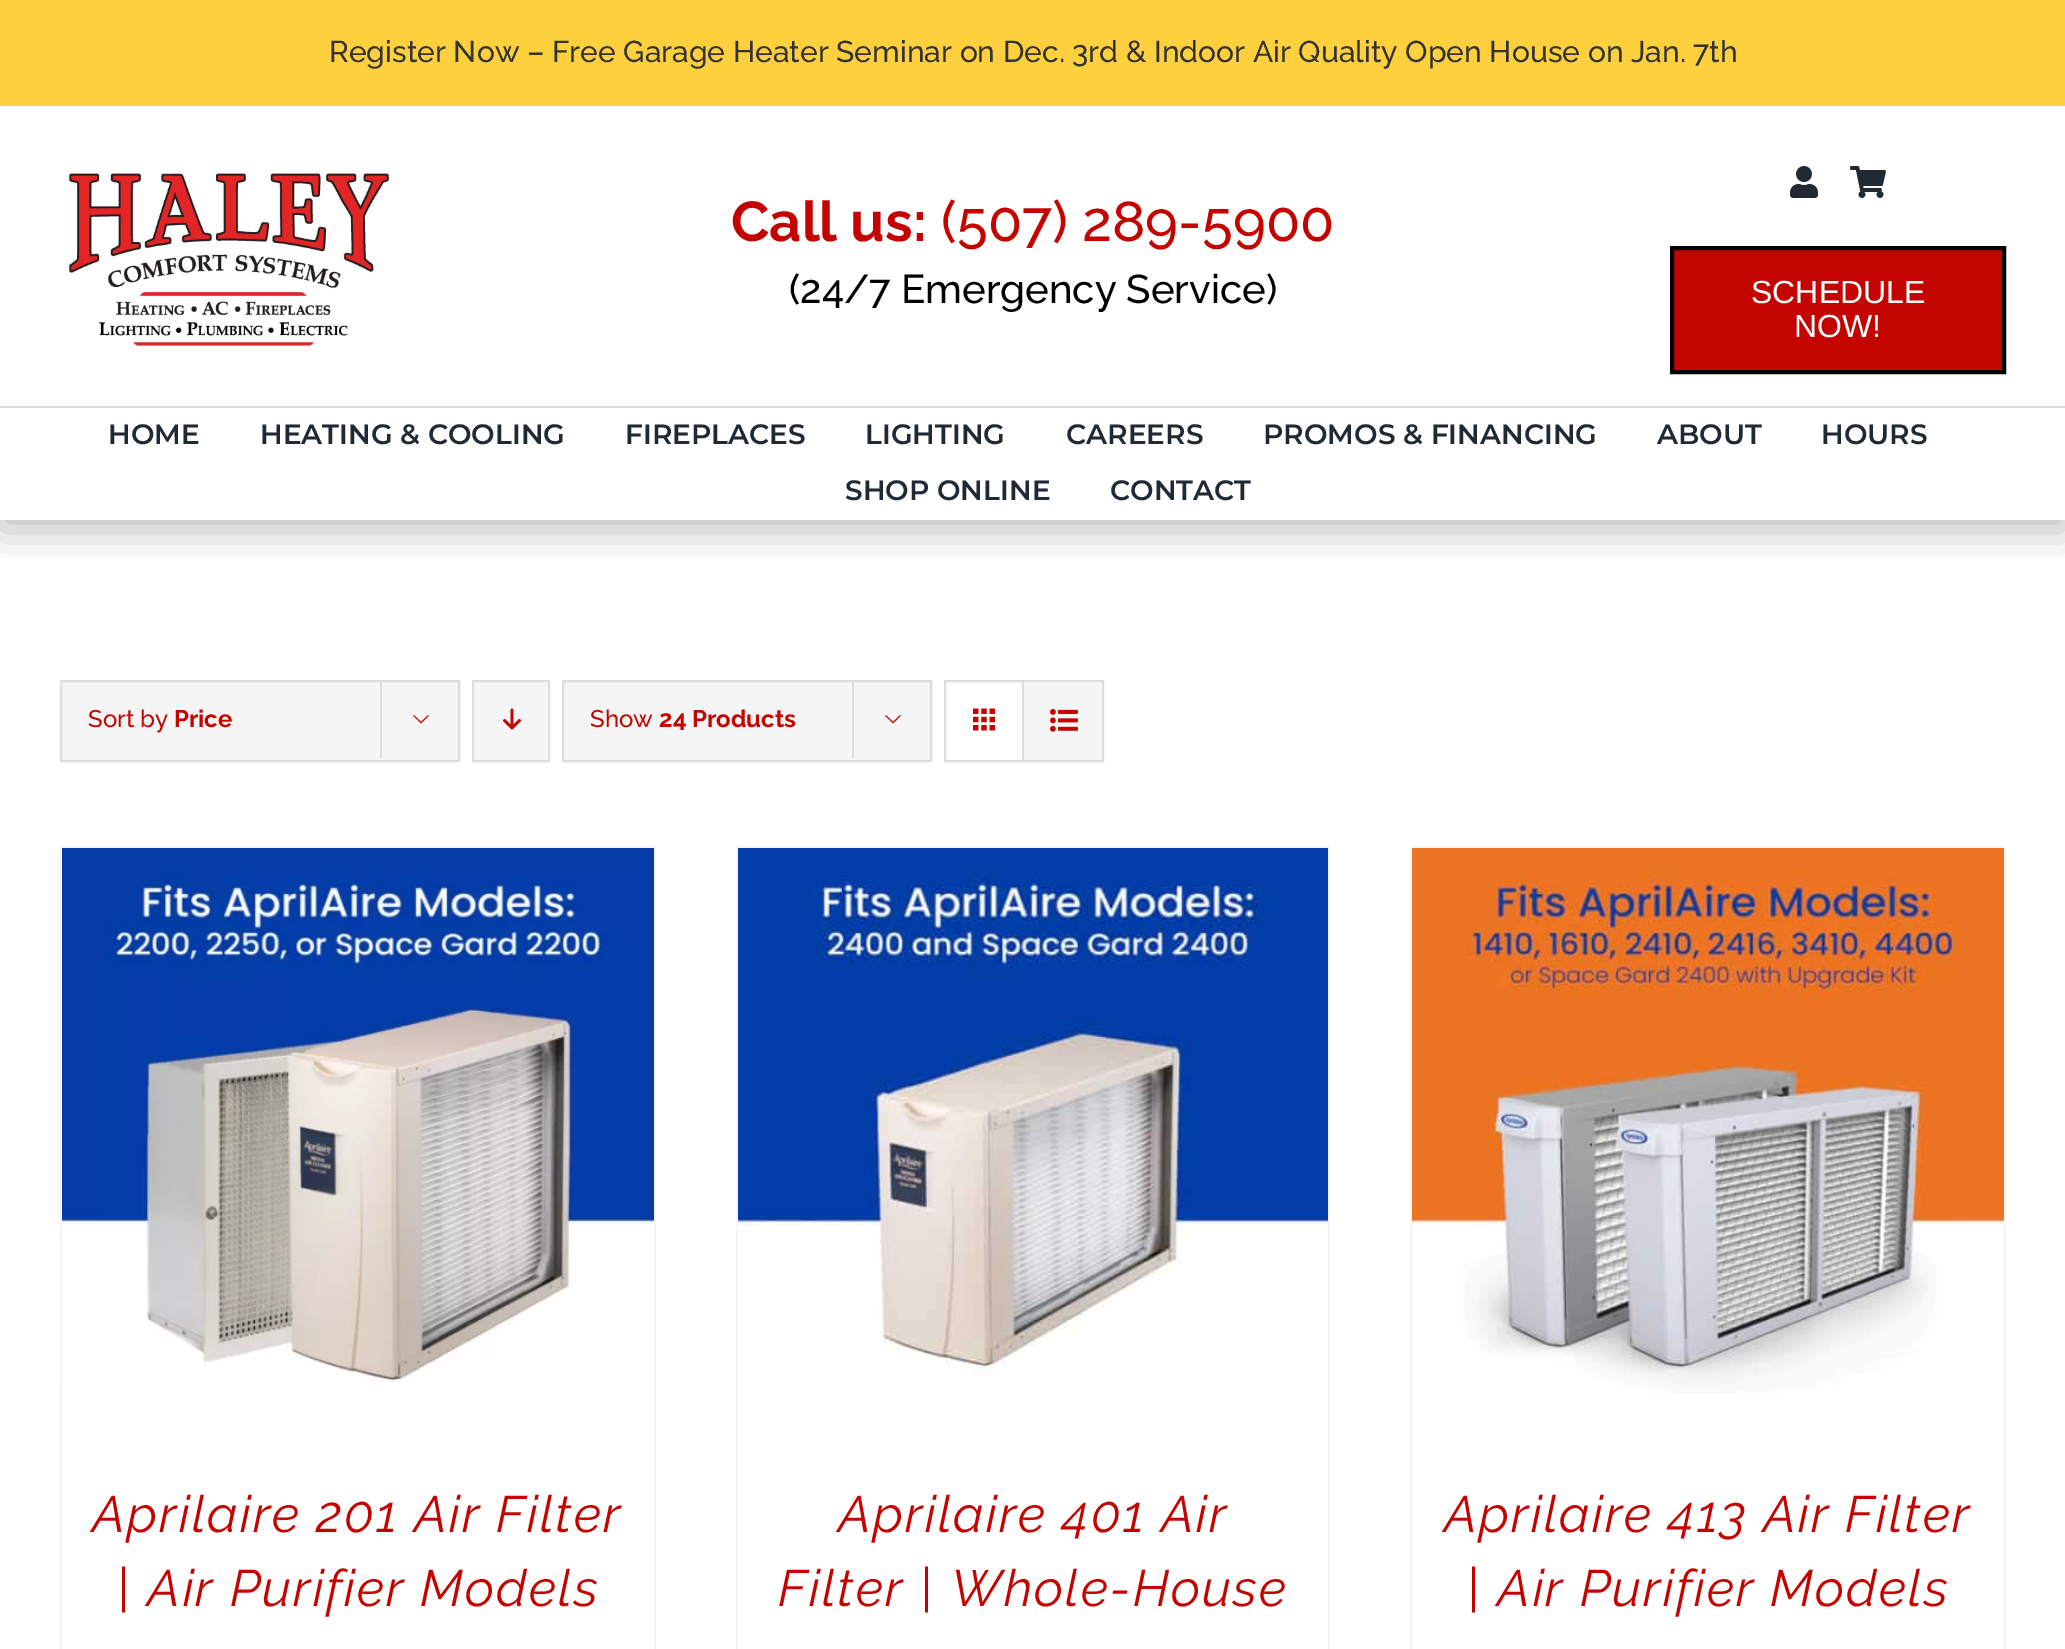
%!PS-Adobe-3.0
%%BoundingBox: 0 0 2065 1649
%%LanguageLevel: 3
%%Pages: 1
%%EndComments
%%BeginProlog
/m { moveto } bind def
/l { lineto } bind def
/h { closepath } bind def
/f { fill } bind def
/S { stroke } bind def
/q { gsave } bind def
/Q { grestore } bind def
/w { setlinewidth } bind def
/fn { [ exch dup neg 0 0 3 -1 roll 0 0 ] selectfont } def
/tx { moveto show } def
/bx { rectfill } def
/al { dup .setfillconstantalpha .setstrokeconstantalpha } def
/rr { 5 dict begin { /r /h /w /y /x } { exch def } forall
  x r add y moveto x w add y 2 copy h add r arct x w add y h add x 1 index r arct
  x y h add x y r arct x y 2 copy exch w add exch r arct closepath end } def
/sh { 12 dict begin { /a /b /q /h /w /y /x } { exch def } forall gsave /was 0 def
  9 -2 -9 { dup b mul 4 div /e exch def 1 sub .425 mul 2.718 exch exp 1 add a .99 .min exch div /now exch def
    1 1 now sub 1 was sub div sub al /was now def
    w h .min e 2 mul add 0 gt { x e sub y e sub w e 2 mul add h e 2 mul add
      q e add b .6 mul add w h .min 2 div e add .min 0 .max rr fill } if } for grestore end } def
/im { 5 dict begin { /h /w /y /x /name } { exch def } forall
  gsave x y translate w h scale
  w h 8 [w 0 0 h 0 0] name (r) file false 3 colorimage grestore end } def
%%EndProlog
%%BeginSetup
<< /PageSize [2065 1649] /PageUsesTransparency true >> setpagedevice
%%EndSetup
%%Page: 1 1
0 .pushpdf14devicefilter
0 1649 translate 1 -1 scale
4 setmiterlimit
1 setgray
0 0 2065 1649 bx
0.996 0.816 0.239 setrgbcolor
0 0 2065 106 bx
/Raleway-Medium 30 fn
0.2 setgray
(Register Now – Free Garage Heater Seminar on Dec. 3rd & Indoor Air Quality Open House on Jan. 7th) 329 62 tx
q
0 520 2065 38 rectclip
0 setgray
0 418 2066 112 0 20 0.25 sh
Q
1 setgray
0 383 2065 23 bx
0.867 setgray
0 406 2065 2 bx
(image0.raw) 68 172 322 175 im
/Raleway-Bold 56 fn
0.765 0.016 0.004 setrgbcolor
(Call us:) 731 241 tx
/Raleway-Medium 56 fn
(\(507\) 289-5900) 941 241 tx
/Raleway-Medium 40 fn
0 setgray
(\(24/7 Emergency Service\)) 789 303 tx
(image1.raw) 1790 166 28 32 im
(image2.raw) 1850 166 36 32 im
0.765 0.016 0.004 setrgbcolor
1672 248 m 2004 248 l 2004 372 l 1672 372 l h q f Q
0 setgray
4 w
S
/LiberationSans-Regular 32 fn
1 setgray
(SCHEDULE) 1751 303 tx
(NOW!) 1794 337 tx
/Montserrat-SemiBold 28 fn
0.129 0.161 0.204 setrgbcolor
(HOME) 108 444 tx
(HEATING & COOLING) 260 444 tx
(FIREPLACES) 625 444 tx
(LIGHTING) 865 444 tx
(CAREERS) 1066 444 tx
(PROMOS & FINANCING) 1263 444 tx
(ABOUT) 1657 444 tx
(HOURS) 1821 444 tx
(SHOP ONLINE) 845 500 tx
(CONTACT) 1110 500 tx
0.961 setgray
61 681 m 459 681 l 459 761 l 61 761 l h q f Q
0.867 setgray
2 w
S
/Raleway-Medium 24 fn
0.765 0.016 0.004 setrgbcolor
(Sort by) 88 727 tx
/Raleway-Bold 24 fn
(Price) 174 727 tx
0.867 setgray
380 680 2 78 bx
(image3.raw) 413 715 16 9 im
0.961 setgray
473 681 m 549 681 l 549 761 l 473 761 l h q f Q
0.867 setgray
S
(image4.raw) 503 708 18 22 im
0.961 setgray
563 681 m 931 681 l 931 761 l 563 761 l h q f Q
0.867 setgray
S
/Raleway-Medium 24 fn
0.765 0.016 0.004 setrgbcolor
(Show) 590 727 tx
/Raleway-Bold 24 fn
(24 Products) 659 727 tx
0.867 setgray
852 680 2 78 bx
(image3.raw) 885 715 16 9 im
945 681 158 80 rectstroke
1022 682 2 78 bx
(image5.raw) 973 708 22 23 im
0.961 setgray
1024 682 78 78 bx
(image6.raw) 1050 709 28 23 im
60 846 596 2 bx
654 846 2 803 bx
60 846 2 803 bx
(image7.raw) 62 848 592 534 im
/Raleway-Italic 51 fn
0.765 0.016 0.004 setrgbcolor
92 1532 m 2 0 (Aprilaire 201 Air Filter) ashow
116 1606 m 2 0 (| Air Purifier Models) ashow
0.961 setgray
736 846 594 2 bx
1328 846 2 803 bx
736 846 2 803 bx
(image8.raw) 738 848 590 529 im
0.765 0.016 0.004 setrgbcolor
838 1532 m 2 0 (Aprilaire 401 Air) ashow
778 1606 m 2 0 (Filter | Whole-House) ashow
0.961 setgray
1410 846 596 2 bx
2004 846 2 803 bx
1410 846 2 803 bx
(image9.raw) 1412 848 592 546 im
0.765 0.016 0.004 setrgbcolor
1444 1532 m 2 0 (Aprilaire 413 Air Filter) ashow
1466 1606 m 2 0 (| Air Purifier Models) ashow
.poppdf14devicefilter showpage
%%EOF
